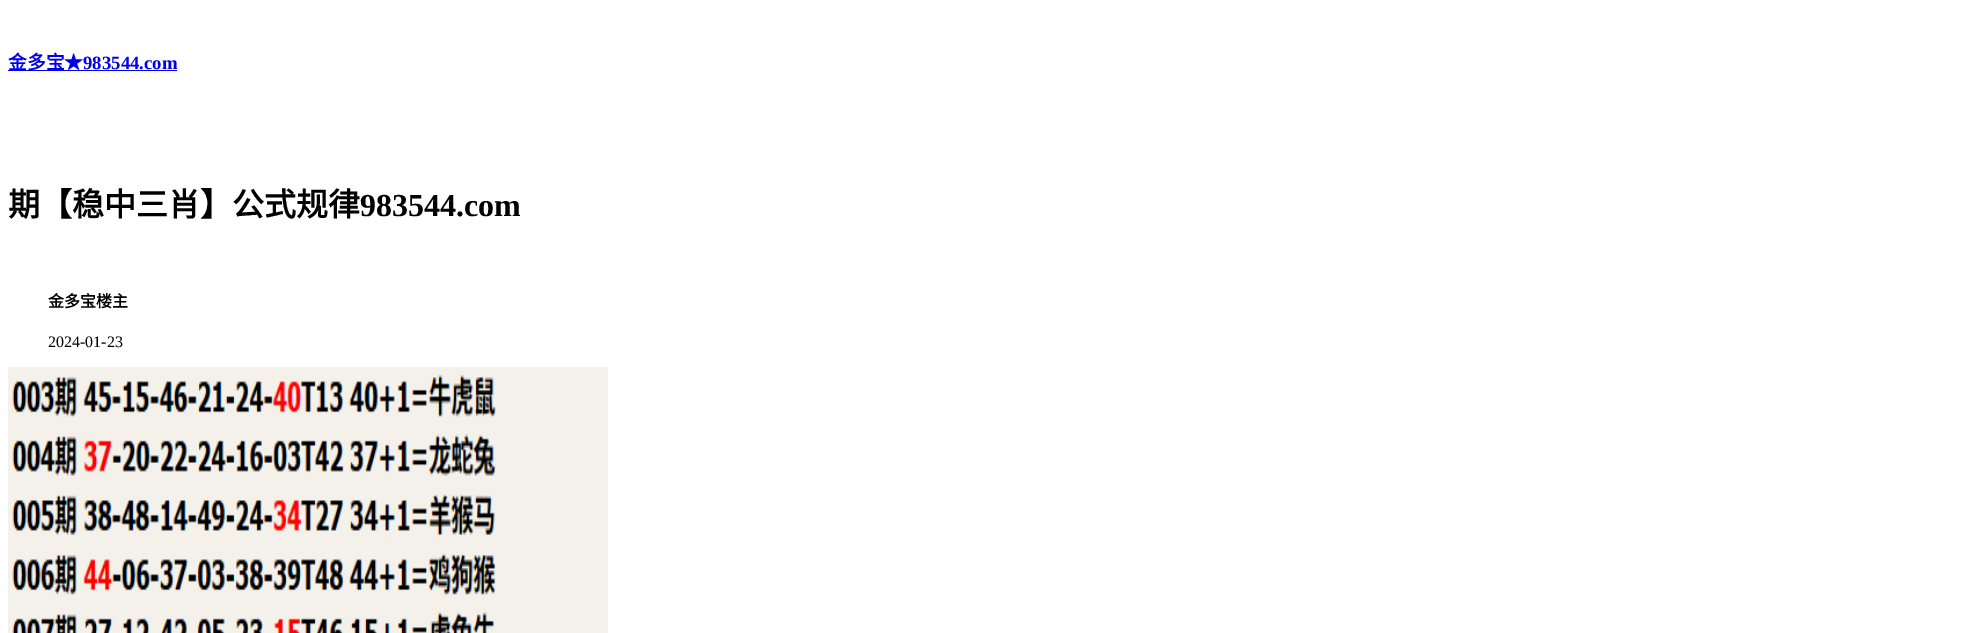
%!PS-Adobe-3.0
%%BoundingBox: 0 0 1968 633
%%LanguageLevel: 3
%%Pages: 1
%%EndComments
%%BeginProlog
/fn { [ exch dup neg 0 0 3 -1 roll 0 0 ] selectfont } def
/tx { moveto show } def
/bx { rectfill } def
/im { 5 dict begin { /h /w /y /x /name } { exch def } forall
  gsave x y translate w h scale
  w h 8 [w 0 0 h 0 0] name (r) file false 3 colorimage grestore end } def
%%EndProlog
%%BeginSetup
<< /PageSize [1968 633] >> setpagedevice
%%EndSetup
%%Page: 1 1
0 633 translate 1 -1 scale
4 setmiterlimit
1 setgray
0 0 1968 633 bx
0 0 0.933 setrgbcolor
8 70 169 1 bx
/NotoSansCJKSC-Bold 18.75 fn
(金多宝★) 8 69 tx
/LiberationSerif-Bold 18.75 fn
(983544.com) 83 69 tx
/NotoSansCJKSC-Bold 32 fn
0 setgray
(期【稳中三肖】公式规律) 8 216 tx
/LiberationSerif-Bold 32 fn
(983544.com) 360 216 tx
/NotoSansCJKSC-Bold 16 fn
(金多宝楼主) 48 307 tx
/LiberationSerif-Regular 16 fn
(2024-01-23) 48 347 tx
(image0.raw) 8 367 600 266 im
showpage
%%EOF
